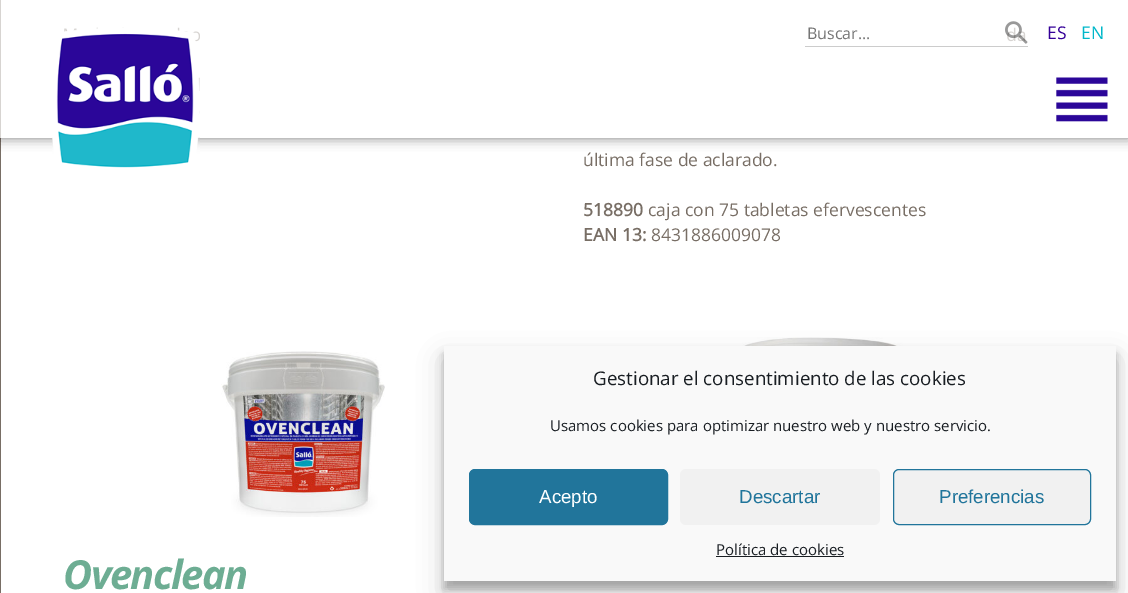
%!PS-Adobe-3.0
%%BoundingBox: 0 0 1128 593
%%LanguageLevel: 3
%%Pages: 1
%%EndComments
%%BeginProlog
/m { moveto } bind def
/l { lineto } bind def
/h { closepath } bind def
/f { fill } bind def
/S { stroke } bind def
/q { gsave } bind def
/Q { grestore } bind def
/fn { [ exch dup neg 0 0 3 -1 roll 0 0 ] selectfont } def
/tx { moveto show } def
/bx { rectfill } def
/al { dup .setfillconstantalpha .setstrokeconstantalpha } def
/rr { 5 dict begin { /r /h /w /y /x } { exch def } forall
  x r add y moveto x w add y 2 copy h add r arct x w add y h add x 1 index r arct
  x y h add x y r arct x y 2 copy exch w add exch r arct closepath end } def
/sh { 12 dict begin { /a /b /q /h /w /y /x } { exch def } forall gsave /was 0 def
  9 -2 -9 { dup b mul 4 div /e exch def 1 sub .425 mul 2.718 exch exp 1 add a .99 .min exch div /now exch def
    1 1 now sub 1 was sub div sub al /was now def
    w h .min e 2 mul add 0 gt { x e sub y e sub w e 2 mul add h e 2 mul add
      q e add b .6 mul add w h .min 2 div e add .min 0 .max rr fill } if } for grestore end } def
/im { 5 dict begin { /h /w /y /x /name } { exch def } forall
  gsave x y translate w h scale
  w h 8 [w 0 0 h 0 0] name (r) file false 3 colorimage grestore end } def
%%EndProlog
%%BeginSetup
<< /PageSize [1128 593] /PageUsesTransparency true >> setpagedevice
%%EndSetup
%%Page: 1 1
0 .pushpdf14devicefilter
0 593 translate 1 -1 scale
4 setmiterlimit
1 setgray
0 0 1128 593 bx
0.471 0.431 0.396 setrgbcolor
0 0 1 593 bx
q
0 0 m 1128 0 l 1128 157 l 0 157 l h 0 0 m 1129 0 l 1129 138 l 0 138 l h eoclip newpath
0 setgray
0 0 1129 138 0 6 0.5 sh
Q
0.7 al
1 setgray
0 0 1128 138 bx
1 al
(image0.raw) 52 27 148 141 im
0.8 setgray
805 46 223 1 bx
/OpenSans-Regular 16 fn
0.459 setgray
(Buscar...) 807 39 tx
(image1.raw) 1005 21 23 23 im
/OpenSans-Regular 17.5 fn
0.204 0 0.596 setrgbcolor
(ES) 1047 39 tx
0 0.718 0.788 setrgbcolor
(EN) 1081 39 tx
(image2.raw) 1056 77 52 45 im
0.471 0.431 0.396 setrgbcolor
(última fase de aclarado.) 583 166 tx
/OpenSans-Bold 17.5 fn
(518890) 583 216 tx
/OpenSans-Regular 17.5 fn
(caja con 75 tabletas efervescentes) 648 216 tx
/OpenSans-Bold 17.5 fn
(EAN 13:) 583 241 tx
/OpenSans-Regular 17.5 fn
(8431886009078) 651 241 tx
(image3.raw) 737 337 176 9 im
(image4.raw) 221 351 164 166 im
/OpenSans-BoldItalic 40 fn
0.427 0.678 0.576 setrgbcolor
63 589 m -1.5 0 (Ovenclean) ashow
0 setgray
444 354 672 235 0 4 0.23 sh
444 359 672 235 0 12.5 0.19 sh
0.976 setgray
444 346 672 235 bx
/OpenSans-Regular 18.75 fn
0.098 0.118 0.137 setrgbcolor
(Gestionar el consentimiento de las cookies) 593 385 tx
/OpenSans-Regular 15 fn
(Usamos cookies para optimizar nuestro web y nuestro servicio.) 550 431 tx
0.129 0.459 0.608 setrgbcolor
469.5 469.5 198 55 5.5 rr q f Q
S
/LiberationSans-Regular 18.75 fn
1 setgray
(Acepto) 539 503 tx
0.945 setgray
680 469 200 56 6 rr f
0.129 0.459 0.608 setrgbcolor
(Descartar) 739 503 tx
0.945 setgray
893.5 469.5 197 55 5.5 rr q f Q
0.129 0.459 0.608 setrgbcolor
S
(Preferencias) 939 503 tx
/OpenSans-Regular 15 fn
0.098 0.118 0.137 setrgbcolor
(Política de cookies) 716 555 tx
716 556 128 1 bx
.poppdf14devicefilter showpage
%%EOF
